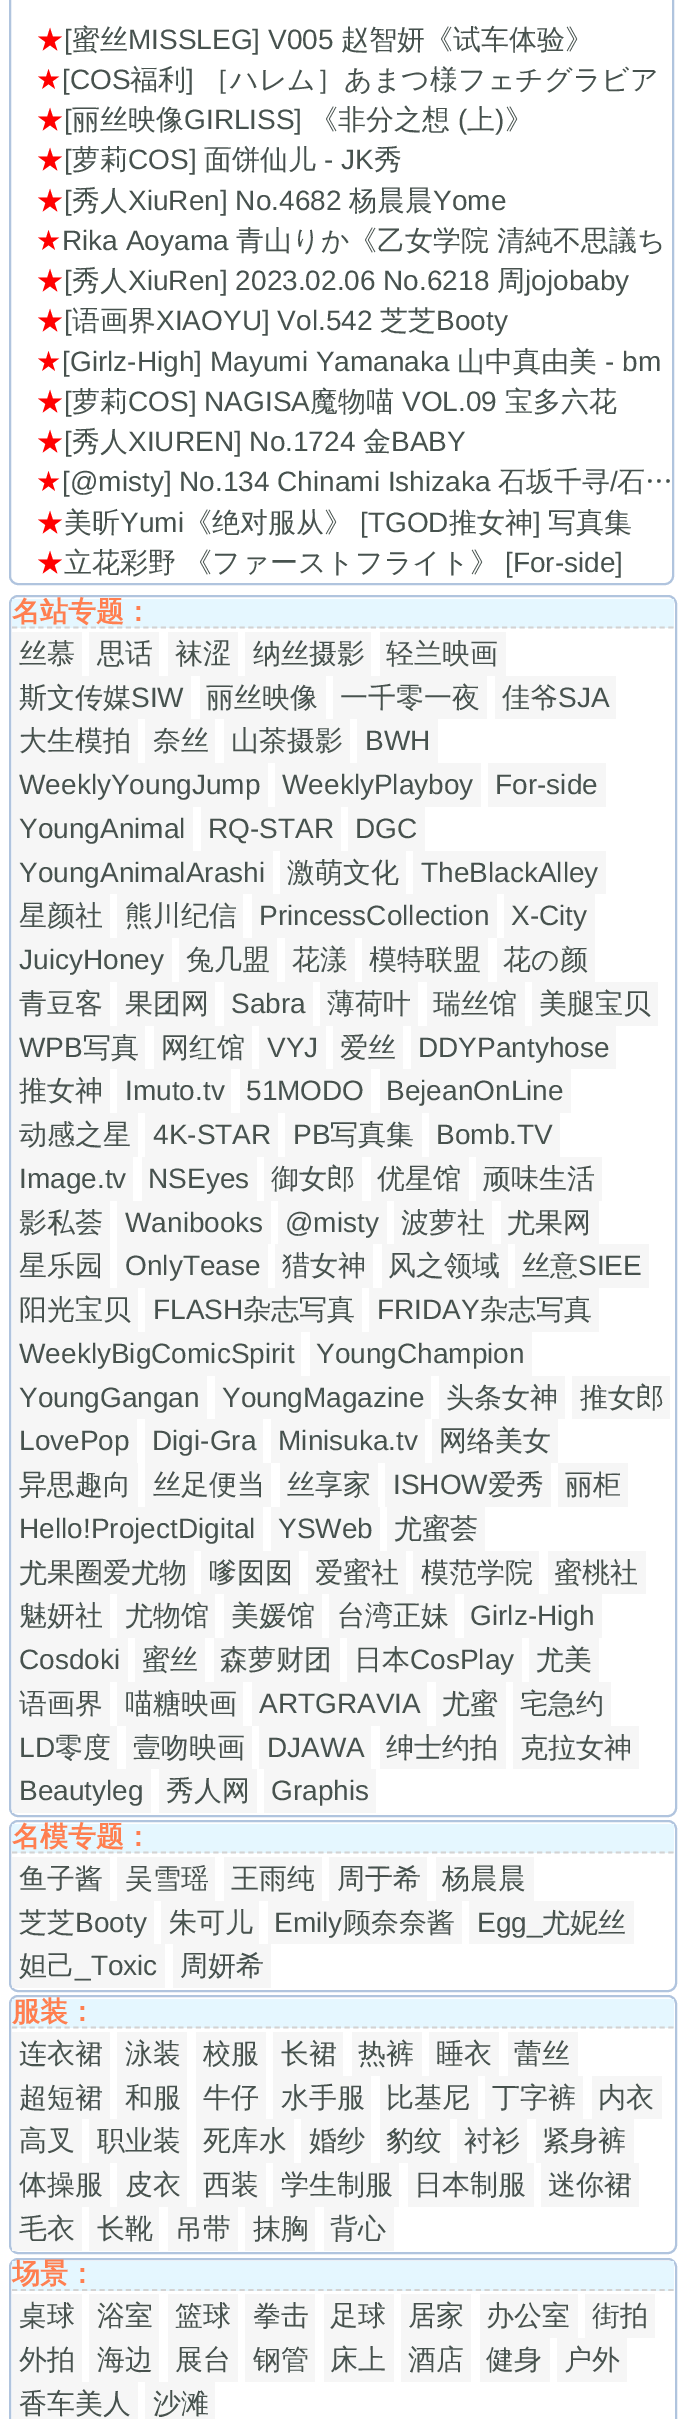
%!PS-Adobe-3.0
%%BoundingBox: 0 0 682 2419
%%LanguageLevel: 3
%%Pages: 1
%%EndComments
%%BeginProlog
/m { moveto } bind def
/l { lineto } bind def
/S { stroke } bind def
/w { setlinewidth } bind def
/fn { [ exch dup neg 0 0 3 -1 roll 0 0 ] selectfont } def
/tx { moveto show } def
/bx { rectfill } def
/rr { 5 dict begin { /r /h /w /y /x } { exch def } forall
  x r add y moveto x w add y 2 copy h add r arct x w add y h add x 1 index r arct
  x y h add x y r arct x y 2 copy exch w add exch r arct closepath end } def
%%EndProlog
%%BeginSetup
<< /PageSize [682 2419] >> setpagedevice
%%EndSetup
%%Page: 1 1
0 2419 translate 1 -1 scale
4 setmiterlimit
1 setgray
0 0 682 2419 bx
0.69 0.769 0.871 setrgbcolor
2 w
10 -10 663 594 8 rr S
/WenQuanYiZenHei-Medium 28 fn
1 0 0 setrgbcolor
(★) 36 49 tx
/LiberationSans-Regular 28 fn
0.278 0.322 0.306 setrgbcolor
([) 64 49 tx
/WenQuanYiZenHei-Medium 28 fn
(蜜丝) 72 49 tx
/LiberationSans-Regular 28 fn
(MISSLEG] V005) 128 49 tx
/WenQuanYiZenHei-Medium 28 fn
(赵智妍《试车体验》) 341 49 tx
/DejaVuSans-Regular 28 fn
1 0 0 setrgbcolor
(★) 36 89 tx
/LiberationSans-Regular 28 fn
0.278 0.322 0.306 setrgbcolor
([COS) 62 89 tx
/WenQuanYiZenHei-Medium 28 fn
(福利) 130 89 tx
/LiberationSans-Regular 28 fn
(]) 186 89 tx
/WenQuanYiZenHei-Medium 28 fn
(［ハレム］あまつ様フェチグラビア) 202 89 tx
1 0 0 setrgbcolor
(★) 36 129 tx
/LiberationSans-Regular 28 fn
0.278 0.322 0.306 setrgbcolor
([) 64 129 tx
/WenQuanYiZenHei-Medium 28 fn
(丽丝映像) 72 129 tx
/LiberationSans-Regular 28 fn
(GIRLISS]) 184 129 tx
/WenQuanYiZenHei-Medium 28 fn
(《非分之想) 310 129 tx
/LiberationSans-Regular 28 fn
(\() 458 129 tx
/WenQuanYiZenHei-Medium 28 fn
(上) 467 129 tx
/LiberationSans-Regular 28 fn
(\)) 495 129 tx
/WenQuanYiZenHei-Medium 28 fn
(》) 505 129 tx
1 0 0 setrgbcolor
(★) 36 169 tx
/LiberationSans-Regular 28 fn
0.278 0.322 0.306 setrgbcolor
([) 64 169 tx
/WenQuanYiZenHei-Medium 28 fn
(萝莉) 72 169 tx
/LiberationSans-Regular 28 fn
(COS]) 128 169 tx
/WenQuanYiZenHei-Medium 28 fn
(面饼仙儿) 204 169 tx
/LiberationSans-Regular 28 fn
(- JK) 324 169 tx
/WenQuanYiZenHei-Medium 28 fn
(秀) 374 169 tx
1 0 0 setrgbcolor
(★) 36 210 tx
/LiberationSans-Regular 28 fn
0.278 0.322 0.306 setrgbcolor
([) 64 210 tx
/WenQuanYiZenHei-Medium 28 fn
(秀人) 72 210 tx
/LiberationSans-Regular 28 fn
(XiuRen] No.4682) 128 210 tx
/WenQuanYiZenHei-Medium 28 fn
(杨晨晨) 349 210 tx
/LiberationSans-Regular 28 fn
(Yome) 433 210 tx
/DejaVuSans-Regular 28 fn
1 0 0 setrgbcolor
(★) 36 250 tx
/LiberationSans-Regular 28 fn
0.278 0.322 0.306 setrgbcolor
(Rika Aoyama) 62 250 tx
/WenQuanYiZenHei-Medium 28 fn
(青山りか《乙女学院) 236 250 tx
(清純不思議ち) 497 250 tx
1 0 0 setrgbcolor
(★) 36 290 tx
/LiberationSans-Regular 28 fn
0.278 0.322 0.306 setrgbcolor
([) 64 290 tx
/WenQuanYiZenHei-Medium 28 fn
(秀人) 72 290 tx
/LiberationSans-Regular 28 fn
(XiuRen] 2023.02.06 No.6218) 128 290 tx
/WenQuanYiZenHei-Medium 28 fn
(周) 497 290 tx
/LiberationSans-Regular 28 fn
(jojobaby) 525 290 tx
/WenQuanYiZenHei-Medium 28 fn
1 0 0 setrgbcolor
(★) 36 330 tx
/LiberationSans-Regular 28 fn
0.278 0.322 0.306 setrgbcolor
([) 64 330 tx
/WenQuanYiZenHei-Medium 28 fn
(语画界) 72 330 tx
/LiberationSans-Regular 28 fn
(XIAOYU] Vol.542) 156 330 tx
/WenQuanYiZenHei-Medium 28 fn
(芝芝) 380 330 tx
/LiberationSans-Regular 28 fn
(Booty) 436 330 tx
/DejaVuSans-Regular 28 fn
1 0 0 setrgbcolor
(★) 36 371 tx
/LiberationSans-Regular 28 fn
0.278 0.322 0.306 setrgbcolor
([Girlz-High] Mayumi Yamanaka) 62 371 tx
/WenQuanYiZenHei-Medium 28 fn
(山中真由美) 457 371 tx
/LiberationSans-Regular 28 fn
(- bm) 605 371 tx
/WenQuanYiZenHei-Medium 28 fn
1 0 0 setrgbcolor
(★) 36 411 tx
/LiberationSans-Regular 28 fn
0.278 0.322 0.306 setrgbcolor
([) 64 411 tx
/WenQuanYiZenHei-Medium 28 fn
(萝莉) 72 411 tx
/LiberationSans-Regular 28 fn
(COS] NAGISA) 128 411 tx
/WenQuanYiZenHei-Medium 28 fn
(魔物喵) 310 411 tx
/LiberationSans-Regular 28 fn
(VOL.09) 402 411 tx
/WenQuanYiZenHei-Medium 28 fn
(宝多六花) 505 411 tx
1 0 0 setrgbcolor
(★) 36 451 tx
/LiberationSans-Regular 28 fn
0.278 0.322 0.306 setrgbcolor
([) 64 451 tx
/WenQuanYiZenHei-Medium 28 fn
(秀人) 72 451 tx
/LiberationSans-Regular 28 fn
(XIUREN] No.1724) 128 451 tx
/WenQuanYiZenHei-Medium 28 fn
(金) 363 451 tx
/LiberationSans-Regular 28 fn
(BABY) 391 451 tx
/DejaVuSans-Regular 28 fn
1 0 0 setrgbcolor
(★) 36 491 tx
/LiberationSans-Regular 28 fn
0.278 0.322 0.306 setrgbcolor
([@misty] No.134 Chinami Ishizaka) 62 491 tx
/WenQuanYiZenHei-Medium 28 fn
(石坂千寻) 498 491 tx
/LiberationSans-Regular 28 fn
(/) 610 491 tx
/WenQuanYiZenHei-Medium 28 fn
(石…) 617 491 tx
1 0 0 setrgbcolor
(★) 36 532 tx
0.278 0.322 0.306 setrgbcolor
(美昕) 64 532 tx
/LiberationSans-Regular 28 fn
(Yumi) 120 532 tx
/WenQuanYiZenHei-Medium 28 fn
(《绝对服从》) 184 532 tx
/LiberationSans-Regular 28 fn
([TGOD) 360 532 tx
/WenQuanYiZenHei-Medium 28 fn
(推女神) 449 532 tx
/LiberationSans-Regular 28 fn
(]) 533 532 tx
/WenQuanYiZenHei-Medium 28 fn
(写真集) 548 532 tx
1 0 0 setrgbcolor
(★) 36 572 tx
0.278 0.322 0.306 setrgbcolor
(立花彩野 《ファーストフライト》) 64 572 tx
/LiberationSans-Regular 28 fn
([For-side]) 505 572 tx
0.69 0.769 0.871 setrgbcolor
10 596 666 1220 8 rr S
0.898 0.969 1 setrgbcolor
12 599 662 29 bx
0.827 setgray
1.8 w
[5.25 3.5] 0 setdash
12 627.5 m 674 627.5 l S
/WenQuanYiZenHei-Bold 28 fn
1 0.498 0.314 setrgbcolor
(名站专题：) 12 621 tx
0.965 setgray
12 632 70 44 bx
/WenQuanYiZenHei-Medium 28 fn
0.278 0.322 0.306 setrgbcolor
(丝慕) 19 663 tx
0.965 setgray
89 632 70 44 bx
0.278 0.322 0.306 setrgbcolor
(思话) 97 663 tx
0.965 setgray
168 632 70 44 bx
0.278 0.322 0.306 setrgbcolor
(袜涩) 175 663 tx
0.965 setgray
245 632 126 44 bx
0.278 0.322 0.306 setrgbcolor
(纳丝摄影) 253 663 tx
0.965 setgray
380 632 126 44 bx
0.278 0.322 0.306 setrgbcolor
(轻兰映画) 386 663 tx
0.965 setgray
12 676 179 43 bx
0.278 0.322 0.306 setrgbcolor
(斯文传媒) 19 707 tx
/LiberationSans-Regular 28 fn
(SIW) 131 707 tx
0.965 setgray
200 676 126 43 bx
/WenQuanYiZenHei-Medium 28 fn
0.278 0.322 0.306 setrgbcolor
(丽丝映像) 206 707 tx
0.965 setgray
333 676 154 43 bx
0.278 0.322 0.306 setrgbcolor
(一千零一夜) 340 707 tx
0.965 setgray
495 676 121 43 bx
0.278 0.322 0.306 setrgbcolor
(佳爷) 502 707 tx
/LiberationSans-Regular 28 fn
(SJA) 558 707 tx
0.965 setgray
12 719 126 44 bx
/WenQuanYiZenHei-Medium 28 fn
0.278 0.322 0.306 setrgbcolor
(大生模拍) 19 750 tx
0.965 setgray
145 719 70 44 bx
0.278 0.322 0.306 setrgbcolor
(奈丝) 153 750 tx
0.965 setgray
224 719 126 44 bx
0.278 0.322 0.306 setrgbcolor
(山茶摄影) 231 750 tx
0.965 setgray
357 719 81 44 bx
/LiberationSans-Regular 28 fn
0.278 0.322 0.306 setrgbcolor
(BWH) 365 750 tx
0.965 setgray
12 763 256 44 bx
0.278 0.322 0.306 setrgbcolor
(WeeklyYoungJump) 19 794 tx
0.965 setgray
275 763 206 44 bx
0.278 0.322 0.306 setrgbcolor
(WeeklyPlayboy) 282 794 tx
0.965 setgray
488 763 118 44 bx
0.278 0.322 0.306 setrgbcolor
(For-side) 495 794 tx
0.965 setgray
12 807 181 44 bx
0.278 0.322 0.306 setrgbcolor
(YoungAnimal) 19 838 tx
0.965 setgray
201 807 140 44 bx
0.278 0.322 0.306 setrgbcolor
(RQ-STAR) 208 838 tx
0.965 setgray
348 807 77 44 bx
0.278 0.322 0.306 setrgbcolor
(DGC) 355 838 tx
0.965 setgray
12 851 261 43 bx
0.278 0.322 0.306 setrgbcolor
(YoungAnimalArashi) 19 882 tx
0.965 setgray
280 851 126 43 bx
/WenQuanYiZenHei-Medium 28 fn
0.278 0.322 0.306 setrgbcolor
(激萌文化) 287 882 tx
0.965 setgray
413 851 193 43 bx
/LiberationSans-Regular 28 fn
0.278 0.322 0.306 setrgbcolor
(TheBlackAlley) 421 882 tx
0.965 setgray
12 894 98 44 bx
/WenQuanYiZenHei-Medium 28 fn
0.278 0.322 0.306 setrgbcolor
(星颜社) 19 925 tx
0.965 setgray
117 894 126 44 bx
0.278 0.322 0.306 setrgbcolor
(熊川纪信) 125 925 tx
0.965 setgray
252 894 245 44 bx
/LiberationSans-Regular 28 fn
0.278 0.322 0.306 setrgbcolor
(PrincessCollection) 259 925 tx
0.965 setgray
504 894 91 44 bx
0.278 0.322 0.306 setrgbcolor
(X-City) 511 925 tx
0.965 setgray
12 938 160 44 bx
0.278 0.322 0.306 setrgbcolor
(JuicyHoney) 19 969 tx
0.965 setgray
179 938 98 44 bx
/WenQuanYiZenHei-Medium 28 fn
0.278 0.322 0.306 setrgbcolor
(兔几盟) 186 969 tx
0.965 setgray
285 938 70 44 bx
0.278 0.322 0.306 setrgbcolor
(花漾) 292 969 tx
0.965 setgray
362 938 126 44 bx
0.278 0.322 0.306 setrgbcolor
(模特联盟) 369 969 tx
0.965 setgray
497 938 98 44 bx
0.278 0.322 0.306 setrgbcolor
(花の颜) 503 969 tx
0.965 setgray
12 982 98 44 bx
0.278 0.322 0.306 setrgbcolor
(青豆客) 19 1013 tx
0.965 setgray
117 982 98 44 bx
0.278 0.322 0.306 setrgbcolor
(果团网) 125 1013 tx
0.965 setgray
224 982 89 44 bx
/LiberationSans-Regular 28 fn
0.278 0.322 0.306 setrgbcolor
(Sabra) 231 1013 tx
0.965 setgray
320 982 98 44 bx
/WenQuanYiZenHei-Medium 28 fn
0.278 0.322 0.306 setrgbcolor
(薄荷叶) 327 1013 tx
0.965 setgray
427 982 98 44 bx
0.278 0.322 0.306 setrgbcolor
(瑞丝馆) 433 1013 tx
0.965 setgray
532 982 126 44 bx
0.278 0.322 0.306 setrgbcolor
(美腿宝贝) 539 1013 tx
0.965 setgray
12 1026 133 43 bx
/LiberationSans-Regular 28 fn
0.278 0.322 0.306 setrgbcolor
(WPB) 19 1057 tx
/WenQuanYiZenHei-Medium 28 fn
(写真) 83 1057 tx
0.965 setgray
154 1026 98 43 bx
0.278 0.322 0.306 setrgbcolor
(网红馆) 161 1057 tx
0.965 setgray
259 1026 67 43 bx
/LiberationSans-Regular 28 fn
0.278 0.322 0.306 setrgbcolor
(VYJ) 267 1057 tx
0.965 setgray
333 1026 70 43 bx
/WenQuanYiZenHei-Medium 28 fn
0.278 0.322 0.306 setrgbcolor
(爱丝) 340 1057 tx
0.965 setgray
411 1026 205 43 bx
/LiberationSans-Regular 28 fn
0.278 0.322 0.306 setrgbcolor
(DDYPantyhose) 418 1057 tx
0.965 setgray
12 1069 98 44 bx
/WenQuanYiZenHei-Medium 28 fn
0.278 0.322 0.306 setrgbcolor
(推女神) 19 1100 tx
0.965 setgray
117 1069 114 44 bx
/LiberationSans-Regular 28 fn
0.278 0.322 0.306 setrgbcolor
(Imuto.tv) 125 1100 tx
0.965 setgray
240 1069 131 44 bx
0.278 0.322 0.306 setrgbcolor
(51MODO) 246 1100 tx
0.965 setgray
380 1069 191 44 bx
0.278 0.322 0.306 setrgbcolor
(BejeanOnLine) 386 1100 tx
0.965 setgray
12 1113 126 44 bx
/WenQuanYiZenHei-Medium 28 fn
0.278 0.322 0.306 setrgbcolor
(动感之星) 19 1144 tx
0.965 setgray
145 1113 133 44 bx
/LiberationSans-Regular 28 fn
0.278 0.322 0.306 setrgbcolor
(4K-STAR) 153 1144 tx
0.965 setgray
285 1113 137 44 bx
0.278 0.322 0.306 setrgbcolor
(PB) 293 1144 tx
/WenQuanYiZenHei-Medium 28 fn
(写真集) 330 1144 tx
0.965 setgray
429 1113 131 44 bx
/LiberationSans-Regular 28 fn
0.278 0.322 0.306 setrgbcolor
(Bomb.TV) 436 1144 tx
0.965 setgray
12 1157 121 44 bx
0.278 0.322 0.306 setrgbcolor
(Image.tv) 19 1188 tx
0.965 setgray
142 1157 115 44 bx
0.278 0.322 0.306 setrgbcolor
(NSEyes) 148 1188 tx
0.965 setgray
264 1157 98 44 bx
/WenQuanYiZenHei-Medium 28 fn
0.278 0.322 0.306 setrgbcolor
(御女郎) 271 1188 tx
0.965 setgray
371 1157 98 44 bx
0.278 0.322 0.306 setrgbcolor
(优星馆) 377 1188 tx
0.965 setgray
476 1157 126 44 bx
0.278 0.322 0.306 setrgbcolor
(顽味生活) 483 1188 tx
0.965 setgray
12 1201 98 87 bx
0.278 0.322 0.306 setrgbcolor
(影私荟) 19 1232 tx
0.965 setgray
117 1201 154 43 bx
/LiberationSans-Regular 28 fn
0.278 0.322 0.306 setrgbcolor
(Wanibooks) 125 1232 tx
0.965 setgray
278 1201 109 43 bx
0.278 0.322 0.306 setrgbcolor
(@misty) 285 1232 tx
0.965 setgray
394 1201 98 43 bx
/WenQuanYiZenHei-Medium 28 fn
0.278 0.322 0.306 setrgbcolor
(波萝社) 401 1232 tx
0.965 setgray
501 1201 98 43 bx
0.278 0.322 0.306 setrgbcolor
(尤果网) 507 1232 tx
(星乐园) 19 1275 tx
0.965 setgray
117 1244 151 44 bx
/LiberationSans-Regular 28 fn
0.278 0.322 0.306 setrgbcolor
(OnlyTease) 125 1275 tx
0.965 setgray
275 1244 98 44 bx
/WenQuanYiZenHei-Medium 28 fn
0.278 0.322 0.306 setrgbcolor
(猎女神) 282 1275 tx
0.965 setgray
382 1244 126 44 bx
0.278 0.322 0.306 setrgbcolor
(风之领域) 388 1275 tx
0.965 setgray
515 1244 134 44 bx
0.278 0.322 0.306 setrgbcolor
(丝意) 522 1275 tx
/LiberationSans-Regular 28 fn
(SIEE) 578 1275 tx
0.965 setgray
12 1288 126 44 bx
/WenQuanYiZenHei-Medium 28 fn
0.278 0.322 0.306 setrgbcolor
(阳光宝贝) 19 1319 tx
0.965 setgray
145 1288 217 44 bx
/LiberationSans-Regular 28 fn
0.278 0.322 0.306 setrgbcolor
(FLASH) 153 1319 tx
/WenQuanYiZenHei-Medium 28 fn
(杂志写真) 243 1319 tx
0.965 setgray
369 1288 230 44 bx
/LiberationSans-Regular 28 fn
0.278 0.322 0.306 setrgbcolor
(FRIDAY) 377 1319 tx
/WenQuanYiZenHei-Medium 28 fn
(杂志写真) 480 1319 tx
0.965 setgray
12 1332 289 44 bx
/LiberationSans-Regular 28 fn
0.278 0.322 0.306 setrgbcolor
(WeeklyBigComicSpirit) 19 1363 tx
0.965 setgray
310 1332 222 44 bx
0.278 0.322 0.306 setrgbcolor
(YoungChampion) 316 1363 tx
0.965 setgray
12 1376 195 43 bx
0.278 0.322 0.306 setrgbcolor
(YoungGangan) 19 1407 tx
0.965 setgray
215 1376 216 43 bx
0.278 0.322 0.306 setrgbcolor
(YoungMagazine) 222 1407 tx
0.965 setgray
439 1376 126 43 bx
/WenQuanYiZenHei-Medium 28 fn
0.278 0.322 0.306 setrgbcolor
(头条女神) 446 1407 tx
0.965 setgray
572 1376 98 43 bx
0.278 0.322 0.306 setrgbcolor
(推女郎) 580 1407 tx
0.965 setgray
12 1419 125 44 bx
/LiberationSans-Regular 28 fn
0.278 0.322 0.306 setrgbcolor
(LovePop) 19 1450 tx
0.965 setgray
145 1419 118 44 bx
0.278 0.322 0.306 setrgbcolor
(Digi-Gra) 152 1450 tx
0.965 setgray
271 1419 154 44 bx
0.278 0.322 0.306 setrgbcolor
(Minisuka.tv) 278 1450 tx
0.965 setgray
432 1419 126 44 bx
/WenQuanYiZenHei-Medium 28 fn
0.278 0.322 0.306 setrgbcolor
(网络美女) 439 1450 tx
0.965 setgray
12 1463 126 44 bx
0.278 0.322 0.306 setrgbcolor
(异思趣向) 19 1494 tx
0.965 setgray
145 1463 126 44 bx
0.278 0.322 0.306 setrgbcolor
(丝足便当) 153 1494 tx
0.965 setgray
280 1463 98 44 bx
0.278 0.322 0.306 setrgbcolor
(丝享家) 287 1494 tx
0.965 setgray
385 1463 166 44 bx
/LiberationSans-Regular 28 fn
0.278 0.322 0.306 setrgbcolor
(ISHOW) 393 1494 tx
/WenQuanYiZenHei-Medium 28 fn
(爱秀) 488 1494 tx
0.965 setgray
558 1463 70 44 bx
0.278 0.322 0.306 setrgbcolor
(丽柜) 565 1494 tx
0.965 setgray
12 1507 251 44 bx
/LiberationSans-Regular 28 fn
0.278 0.322 0.306 setrgbcolor
(Hello!ProjectDigital) 19 1538 tx
0.965 setgray
271 1507 109 44 bx
0.278 0.322 0.306 setrgbcolor
(YSWeb) 278 1538 tx
0.965 setgray
387 1507 98 44 bx
/WenQuanYiZenHei-Medium 28 fn
0.278 0.322 0.306 setrgbcolor
(尤蜜荟) 394 1538 tx
0.965 setgray
12 1551 182 43 bx
0.278 0.322 0.306 setrgbcolor
(尤果圈爱尤物) 19 1582 tx
0.965 setgray
201 1551 98 43 bx
0.278 0.322 0.306 setrgbcolor
(嗲囡囡) 209 1582 tx
0.965 setgray
308 1551 98 43 bx
0.278 0.322 0.306 setrgbcolor
(爱蜜社) 315 1582 tx
0.965 setgray
413 1551 126 43 bx
0.278 0.322 0.306 setrgbcolor
(模范学院) 421 1582 tx
0.965 setgray
548 1551 98 43 bx
0.278 0.322 0.306 setrgbcolor
(蜜桃社) 554 1582 tx
0.965 setgray
12 1594 98 44 bx
0.278 0.322 0.306 setrgbcolor
(魅妍社) 19 1625 tx
0.965 setgray
117 1594 98 44 bx
0.278 0.322 0.306 setrgbcolor
(尤物馆) 125 1625 tx
0.965 setgray
224 1594 98 44 bx
0.278 0.322 0.306 setrgbcolor
(美媛馆) 231 1625 tx
0.965 setgray
329 1594 126 44 bx
0.278 0.322 0.306 setrgbcolor
(台湾正妹) 337 1625 tx
0.965 setgray
464 1594 138 44 bx
/LiberationSans-Regular 28 fn
0.278 0.322 0.306 setrgbcolor
(Girlz-High) 470 1625 tx
0.965 setgray
12 1638 116 44 bx
0.278 0.322 0.306 setrgbcolor
(Cosdoki) 19 1669 tx
0.965 setgray
135 1638 70 44 bx
/WenQuanYiZenHei-Medium 28 fn
0.278 0.322 0.306 setrgbcolor
(蜜丝) 142 1669 tx
0.965 setgray
214 1638 126 44 bx
0.278 0.322 0.306 setrgbcolor
(森萝财团) 220 1669 tx
0.965 setgray
347 1638 175 44 bx
0.278 0.322 0.306 setrgbcolor
(日本) 354 1669 tx
/LiberationSans-Regular 28 fn
(CosPlay) 410 1669 tx
0.965 setgray
529 1638 70 44 bx
/WenQuanYiZenHei-Medium 28 fn
0.278 0.322 0.306 setrgbcolor
(尤美) 536 1669 tx
0.965 setgray
12 1682 98 44 bx
0.278 0.322 0.306 setrgbcolor
(语画界) 19 1713 tx
0.965 setgray
117 1682 126 44 bx
0.278 0.322 0.306 setrgbcolor
(喵糖映画) 125 1713 tx
0.965 setgray
252 1682 175 44 bx
/LiberationSans-Regular 28 fn
0.278 0.322 0.306 setrgbcolor
(ARTGRAVIA) 259 1713 tx
0.965 setgray
436 1682 70 44 bx
/WenQuanYiZenHei-Medium 28 fn
0.278 0.322 0.306 setrgbcolor
(尤蜜) 442 1713 tx
0.965 setgray
513 1682 98 44 bx
0.278 0.322 0.306 setrgbcolor
(宅急约) 520 1713 tx
0.965 setgray
12 1726 105 43 bx
/LiberationSans-Regular 28 fn
0.278 0.322 0.306 setrgbcolor
(LD) 19 1757 tx
/WenQuanYiZenHei-Medium 28 fn
(零度) 55 1757 tx
0.965 setgray
126 1726 126 43 bx
0.278 0.322 0.306 setrgbcolor
(壹吻映画) 133 1757 tx
0.965 setgray
259 1726 112 43 bx
/LiberationSans-Regular 28 fn
0.278 0.322 0.306 setrgbcolor
(DJAWA) 267 1757 tx
0.965 setgray
380 1726 126 43 bx
/WenQuanYiZenHei-Medium 28 fn
0.278 0.322 0.306 setrgbcolor
(绅士约拍) 386 1757 tx
0.965 setgray
513 1726 126 43 bx
0.278 0.322 0.306 setrgbcolor
(克拉女神) 520 1757 tx
0.965 setgray
12 1769 139 44 bx
/LiberationSans-Regular 28 fn
0.278 0.322 0.306 setrgbcolor
(Beautyleg) 19 1800 tx
0.965 setgray
159 1769 98 44 bx
/WenQuanYiZenHei-Medium 28 fn
0.278 0.322 0.306 setrgbcolor
(秀人网) 166 1800 tx
0.965 setgray
264 1769 112 44 bx
/LiberationSans-Regular 28 fn
0.278 0.322 0.306 setrgbcolor
(Graphis) 271 1800 tx
0.69 0.769 0.871 setrgbcolor
2 w
[] 0 setdash
10 1821 666 170 8 rr S
0.898 0.969 1 setrgbcolor
12 1824 662 29 bx
0.827 setgray
1.8 w
[5.25 3.5] 0 setdash
12 1852.5 m 674 1852.5 l S
/WenQuanYiZenHei-Bold 28 fn
1 0.498 0.314 setrgbcolor
(名模专题：) 12 1846 tx
0.965 setgray
12 1857 98 44 bx
/WenQuanYiZenHei-Medium 28 fn
0.278 0.322 0.306 setrgbcolor
(鱼子酱) 19 1888 tx
0.965 setgray
117 1857 98 44 bx
0.278 0.322 0.306 setrgbcolor
(吴雪瑶) 125 1888 tx
0.965 setgray
224 1857 98 44 bx
0.278 0.322 0.306 setrgbcolor
(王雨纯) 231 1888 tx
0.965 setgray
329 1857 98 44 bx
0.278 0.322 0.306 setrgbcolor
(周于希) 337 1888 tx
0.965 setgray
436 1857 98 44 bx
0.278 0.322 0.306 setrgbcolor
(杨晨晨) 442 1888 tx
0.965 setgray
12 1901 142 43 bx
0.278 0.322 0.306 setrgbcolor
(芝芝) 19 1932 tx
/LiberationSans-Regular 28 fn
(Booty) 75 1932 tx
0.965 setgray
161 1901 98 43 bx
/WenQuanYiZenHei-Medium 28 fn
0.278 0.322 0.306 setrgbcolor
(朱可儿) 169 1932 tx
0.965 setgray
268 1901 194 43 bx
/LiberationSans-Regular 28 fn
0.278 0.322 0.306 setrgbcolor
(Emily) 274 1932 tx
/WenQuanYiZenHei-Medium 28 fn
(顾奈奈酱) 343 1932 tx
0.965 setgray
469 1901 165 43 bx
/LiberationSans-Regular 28 fn
0.278 0.322 0.306 setrgbcolor
(Egg_) 477 1932 tx
/WenQuanYiZenHei-Medium 28 fn
(尤妮丝) 542 1932 tx
0.965 setgray
12 1944 153 44 bx
0.278 0.322 0.306 setrgbcolor
(妲己) 19 1975 tx
/LiberationSans-Regular 28 fn
(_Toxic) 75 1975 tx
0.965 setgray
173 1944 98 44 bx
/WenQuanYiZenHei-Medium 28 fn
0.278 0.322 0.306 setrgbcolor
(周妍希) 180 1975 tx
0.69 0.769 0.871 setrgbcolor
2 w
[] 0 setdash
10 1996 666 257 8 rr S
0.898 0.969 1 setrgbcolor
12 1999 662 29 bx
0.827 setgray
1.8 w
[5.25 3.5] 0 setdash
12 2027.5 m 674 2027.5 l S
/WenQuanYiZenHei-Bold 28 fn
1 0.498 0.314 setrgbcolor
(服装：) 12 2021 tx
0.965 setgray
12 2032 98 87 bx
/WenQuanYiZenHei-Medium 28 fn
0.278 0.322 0.306 setrgbcolor
(连衣裙) 19 2063 tx
0.965 setgray
117 2032 70 87 bx
0.278 0.322 0.306 setrgbcolor
(泳装) 125 2063 tx
0.965 setgray
196 2032 70 87 bx
0.278 0.322 0.306 setrgbcolor
(校服) 203 2063 tx
0.965 setgray
273 2032 70 44 bx
0.278 0.322 0.306 setrgbcolor
(长裙) 281 2063 tx
0.965 setgray
352 2032 70 44 bx
0.278 0.322 0.306 setrgbcolor
(热裤) 358 2063 tx
0.965 setgray
429 2032 70 44 bx
0.278 0.322 0.306 setrgbcolor
(睡衣) 436 2063 tx
0.965 setgray
508 2032 70 44 bx
0.278 0.322 0.306 setrgbcolor
(蕾丝) 514 2063 tx
(超短裙) 19 2107 tx
(和服) 125 2107 tx
(牛仔) 203 2107 tx
0.965 setgray
273 2076 98 43 bx
0.278 0.322 0.306 setrgbcolor
(水手服) 281 2107 tx
0.965 setgray
380 2076 98 43 bx
0.278 0.322 0.306 setrgbcolor
(比基尼) 386 2107 tx
0.965 setgray
485 2076 98 43 bx
0.278 0.322 0.306 setrgbcolor
(丁字裤) 492 2107 tx
0.965 setgray
592 2076 70 43 bx
0.278 0.322 0.306 setrgbcolor
(内衣) 598 2107 tx
0.965 setgray
12 2119 70 44 bx
0.278 0.322 0.306 setrgbcolor
(高叉) 19 2150 tx
0.965 setgray
89 2119 98 44 bx
0.278 0.322 0.306 setrgbcolor
(职业装) 97 2150 tx
0.965 setgray
196 2119 98 44 bx
0.278 0.322 0.306 setrgbcolor
(死库水) 203 2150 tx
0.965 setgray
301 2119 70 44 bx
0.278 0.322 0.306 setrgbcolor
(婚纱) 309 2150 tx
0.965 setgray
380 2119 70 44 bx
0.278 0.322 0.306 setrgbcolor
(豹纹) 386 2150 tx
0.965 setgray
457 2119 70 44 bx
0.278 0.322 0.306 setrgbcolor
(衬衫) 464 2150 tx
0.965 setgray
536 2119 98 44 bx
0.278 0.322 0.306 setrgbcolor
(紧身裤) 542 2150 tx
0.965 setgray
12 2163 98 44 bx
0.278 0.322 0.306 setrgbcolor
(体操服) 19 2194 tx
0.965 setgray
117 2163 70 44 bx
0.278 0.322 0.306 setrgbcolor
(皮衣) 125 2194 tx
0.965 setgray
196 2163 70 44 bx
0.278 0.322 0.306 setrgbcolor
(西装) 203 2194 tx
0.965 setgray
273 2163 126 44 bx
0.278 0.322 0.306 setrgbcolor
(学生制服) 281 2194 tx
0.965 setgray
408 2163 126 44 bx
0.278 0.322 0.306 setrgbcolor
(日本制服) 414 2194 tx
0.965 setgray
541 2163 98 44 bx
0.278 0.322 0.306 setrgbcolor
(迷你裙) 548 2194 tx
0.965 setgray
12 2207 70 44 bx
0.278 0.322 0.306 setrgbcolor
(毛衣) 19 2238 tx
0.965 setgray
89 2207 70 44 bx
0.278 0.322 0.306 setrgbcolor
(长靴) 97 2238 tx
0.965 setgray
168 2207 70 44 bx
0.278 0.322 0.306 setrgbcolor
(吊带) 175 2238 tx
0.965 setgray
245 2207 70 44 bx
0.278 0.322 0.306 setrgbcolor
(抹胸) 253 2238 tx
0.965 setgray
324 2207 70 44 bx
0.278 0.322 0.306 setrgbcolor
(背心) 330 2238 tx
0.69 0.769 0.871 setrgbcolor
2 w
[] 0 setdash
10 2259 666 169 8 rr S
0.898 0.969 1 setrgbcolor
12 2261 662 30 bx
0.827 setgray
1.8 w
[5.25 3.5] 0 setdash
12 2290 m 674 2290 l S
/WenQuanYiZenHei-Bold 28 fn
1 0.498 0.314 setrgbcolor
(场景：) 12 2283 tx
0.965 setgray
12 2294 70 88 bx
/WenQuanYiZenHei-Medium 28 fn
0.278 0.322 0.306 setrgbcolor
(桌球) 19 2325 tx
0.965 setgray
89 2294 70 88 bx
0.278 0.322 0.306 setrgbcolor
(浴室) 97 2325 tx
0.965 setgray
168 2294 70 88 bx
0.278 0.322 0.306 setrgbcolor
(篮球) 175 2325 tx
0.965 setgray
245 2294 70 88 bx
0.278 0.322 0.306 setrgbcolor
(拳击) 253 2325 tx
0.965 setgray
324 2294 70 88 bx
0.278 0.322 0.306 setrgbcolor
(足球) 330 2325 tx
0.965 setgray
401 2294 70 88 bx
0.278 0.322 0.306 setrgbcolor
(居家) 408 2325 tx
0.965 setgray
480 2294 98 44 bx
0.278 0.322 0.306 setrgbcolor
(办公室) 486 2325 tx
0.965 setgray
585 2294 70 44 bx
0.278 0.322 0.306 setrgbcolor
(街拍) 592 2325 tx
(外拍) 19 2369 tx
(海边) 97 2369 tx
(展台) 175 2369 tx
(钢管) 253 2369 tx
(床上) 330 2369 tx
(酒店) 408 2369 tx
0.965 setgray
480 2338 70 44 bx
0.278 0.322 0.306 setrgbcolor
(健身) 486 2369 tx
0.965 setgray
557 2338 70 44 bx
0.278 0.322 0.306 setrgbcolor
(户外) 564 2369 tx
0.965 setgray
12 2382 126 37 bx
0.278 0.322 0.306 setrgbcolor
(香车美人) 19 2413 tx
0.965 setgray
145 2382 70 37 bx
0.278 0.322 0.306 setrgbcolor
(沙滩) 153 2413 tx
showpage
%%EOF
